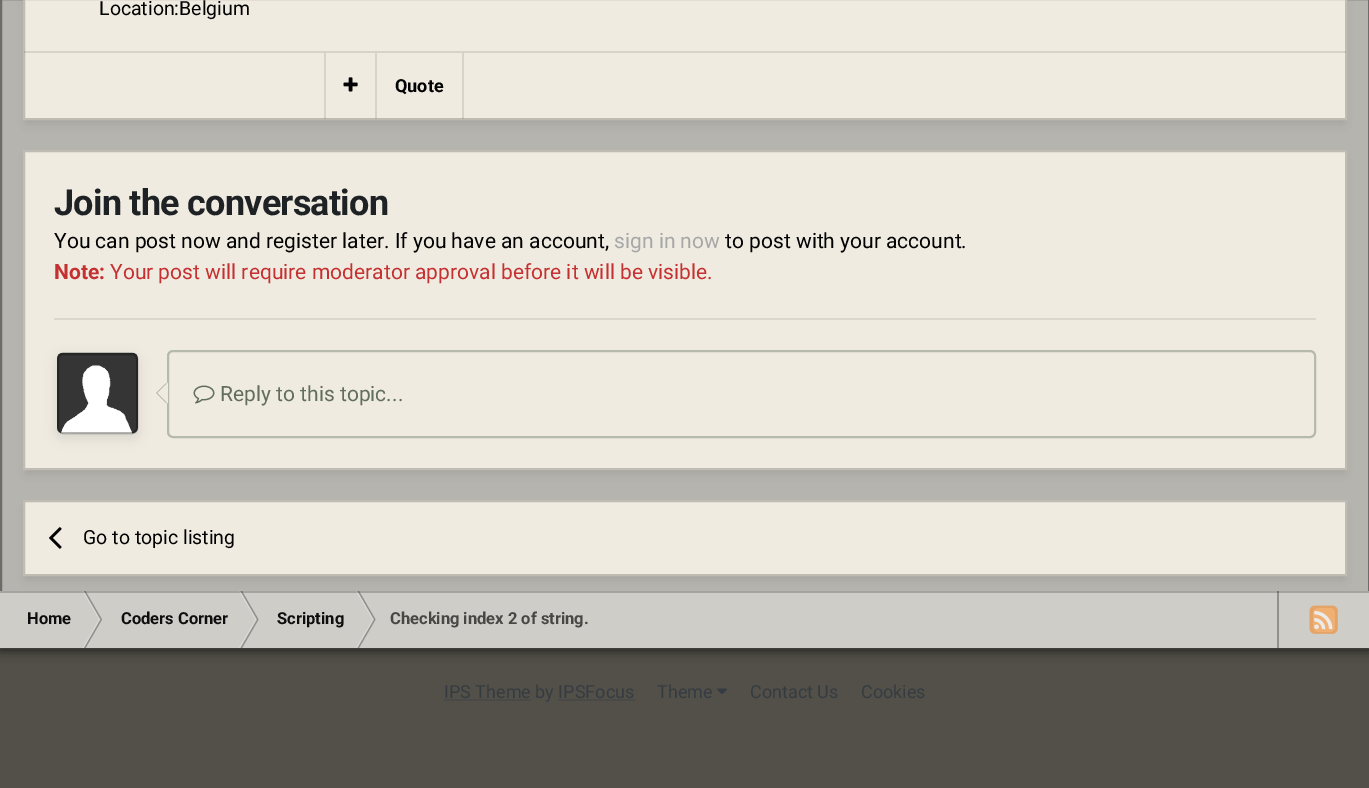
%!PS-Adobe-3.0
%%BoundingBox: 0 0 1369 788
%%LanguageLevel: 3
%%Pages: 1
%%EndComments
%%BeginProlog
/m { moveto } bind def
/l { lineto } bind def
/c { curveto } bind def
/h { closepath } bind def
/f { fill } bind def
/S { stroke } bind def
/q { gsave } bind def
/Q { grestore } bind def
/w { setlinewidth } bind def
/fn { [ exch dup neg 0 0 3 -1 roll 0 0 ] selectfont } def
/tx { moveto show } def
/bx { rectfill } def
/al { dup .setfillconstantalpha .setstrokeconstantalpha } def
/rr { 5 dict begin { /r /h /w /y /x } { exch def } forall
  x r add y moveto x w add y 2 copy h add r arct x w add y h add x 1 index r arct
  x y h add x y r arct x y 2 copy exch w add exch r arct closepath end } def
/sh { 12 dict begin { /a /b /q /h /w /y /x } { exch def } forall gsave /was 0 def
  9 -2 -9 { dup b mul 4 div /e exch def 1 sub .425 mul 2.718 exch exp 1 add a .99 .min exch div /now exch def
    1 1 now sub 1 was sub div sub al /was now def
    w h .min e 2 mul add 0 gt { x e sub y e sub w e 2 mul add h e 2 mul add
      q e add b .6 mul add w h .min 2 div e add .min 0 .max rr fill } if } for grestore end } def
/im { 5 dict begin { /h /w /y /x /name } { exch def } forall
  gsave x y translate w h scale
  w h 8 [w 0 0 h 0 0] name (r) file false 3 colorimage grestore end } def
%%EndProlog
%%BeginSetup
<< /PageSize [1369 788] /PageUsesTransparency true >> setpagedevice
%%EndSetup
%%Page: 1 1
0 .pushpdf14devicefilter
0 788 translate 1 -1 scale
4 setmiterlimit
0.322 0.314 0.286 setrgbcolor
0 0 1369 788 bx
0 setgray
0 -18 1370 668 0 6 0.7 sh
0.714 0.706 0.682 setrgbcolor
2 0 1366 591 bx
0.427 0.424 0.408 setrgbcolor
2 w
1 -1 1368 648 rectstroke
0 setgray
26 -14 1318 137 0 4.5 0.1 sh
0.937 0.922 0.882 setrgbcolor
24 -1 m 1346 -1 l 1346 119 l 24 119 l h q f Q
0.753 0.737 0.706 setrgbcolor
S
/Roboto-Regular 19.5 fn
0.008 setgray
(Location:Belgium) 99 15 tx
0.1 al
24 51 1322 2 bx
324 53 2 66 bx
375 53 2 66 bx
1 al
(image0.raw) 343 77 15 15 im
0.1 al
462 53 2 66 bx
/Roboto-Bold 18 fn
1 al
(Quote) 395 92 tx
0 setgray
26 159 1318 314 0 4.5 0.1 sh
0.937 0.922 0.882 setrgbcolor
24 151 m 1346 151 l 1346 469 l 24 469 l h q f Q
0.753 0.737 0.706 setrgbcolor
S
0.855 0.847 0.808 setrgbcolor
54 318 1262 2 bx
/Roboto-Bold 36 fn
0.118 0.133 0.145 setrgbcolor
54 215 m -0.75 0 (Join the conversation) ashow
/Roboto-Regular 21 fn
0.008 setgray
(You can post now and register later. If you have an account,) 54 248 tx
0.655 setgray
(sign in now) 614 248 tx
0.008 setgray
(to post with your account.) 725 248 tx
/Roboto-Bold 21 fn
0.773 0.188 0.188 setrgbcolor
(Note:) 54 279 tx
/Roboto-Regular 21 fn
(Your post will require moderator approval before it will be visible.) 110 279 tx
(image1.raw) 57 352 81 82 im
q
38 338 m 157 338 l 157 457 l 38 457 l h 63 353 m 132 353 l 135.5 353 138 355.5 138 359 c 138 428 l 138 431.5 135.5 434 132 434 c 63 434 l 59.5 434 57 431.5 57 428 c 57 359 l 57 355.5 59.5 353 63 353 c h eoclip newpath
0 setgray
57 357 81 81 6 6 0.1 sh
Q
0.3 al
0.008 setgray
58 354 79 79 5 rr S
1 al
0.714 0.725 0.678 setrgbcolor
168 351 1147 86 5 rr S
166.5 382.5 m 166.5 403.5 l 156 393 l h f
0.937 0.922 0.882 setrgbcolor
168 382.5 m 168 403.5 l 157.5 393 l h f
(image2.raw) 193 385 22 19 im
0.38 0.427 0.373 setrgbcolor
(Reply to this topic...) 220 401 tx
0 setgray
26 509 1318 70 0 4.5 0.1 sh
0.937 0.922 0.882 setrgbcolor
24 501 m 1346 501 l 1346 575 l 24 575 l h q f Q
0.753 0.737 0.706 setrgbcolor
S
(image3.raw) 49 527 13 22 im
/Roboto-Regular 19.5 fn
0.008 setgray
(Go to topic listing) 83 544 tx
0.812 0.804 0.784 setrgbcolor
0 591 1369 57 bx
0.859 0.855 0.839 setrgbcolor
82.5 591 m 84 591 l 100.5 619.5 l 99 619.5 l h f
0.3 al
0 setgray
84 591 m 85.5 591 l 102 619.5 l 100.5 619.5 l h f
1 al
0.859 0.855 0.839 setrgbcolor
239 591 m 240.5 591 l 257 619.5 l 255.5 619.5 l h f
0.3 al
0 setgray
240.5 591 m 242 591 l 258.5 619.5 l 257 619.5 l h f
1 al
0.859 0.855 0.839 setrgbcolor
356 591 m 357.5 591 l 374 619.5 l 372.5 619.5 l h f
0.3 al
0 setgray
357.5 591 m 359 591 l 375.5 619.5 l 374 619.5 l h f
1 al
0.569 0.565 0.549 setrgbcolor
1277 591 2 57 bx
0.2 al
0.008 setgray
0 591 1369 2 bx
/Roboto-Bold 16.5 fn
1 al
0.055 setgray
(Home) 27 624 tx
0.859 0.855 0.839 setrgbcolor
82.5 648 m 84 648 l 100.5 619.5 l 99 619.5 l h f
0.3 al
0 setgray
84 648 m 85.5 648 l 102 619.5 l 100.5 619.5 l h f
1 al
0.055 setgray
(Coders Corner) 121 624 tx
0.859 0.855 0.839 setrgbcolor
239 648 m 240.5 648 l 257 619.5 l 255.5 619.5 l h f
0.3 al
0 setgray
240.5 648 m 242 648 l 258.5 619.5 l 257 619.5 l h f
1 al
0.055 setgray
(Scripting) 277 624 tx
0.859 0.855 0.839 setrgbcolor
356 648 m 357.5 648 l 374 619.5 l 372.5 619.5 l h f
0.3 al
0 setgray
357.5 648 m 359 648 l 375.5 619.5 l 374 619.5 l h f
1 al
0.282 0.278 0.275 setrgbcolor
(Checking index 2 of string.) 390 624 tx
0.925 0.922 0.914 setrgbcolor
1313 608 22 24 5 rr f
(image4.raw) 1309 605 29 29 im
0.286 0.29 0.278 setrgbcolor
444 699 87 2 bx
/Roboto-Regular 18 fn
0.208 0.235 0.255 setrgbcolor
(IPS Theme by IPSFocus) 444 698 tx
0.286 0.29 0.278 setrgbcolor
558 699 77 2 bx
0.208 0.235 0.255 setrgbcolor
(Theme) 657 698 tx
(image5.raw) 717 688 10 6 im
(Contact Us) 750 698 tx
(Cookies) 861 698 tx
.poppdf14devicefilter showpage
%%EOF
